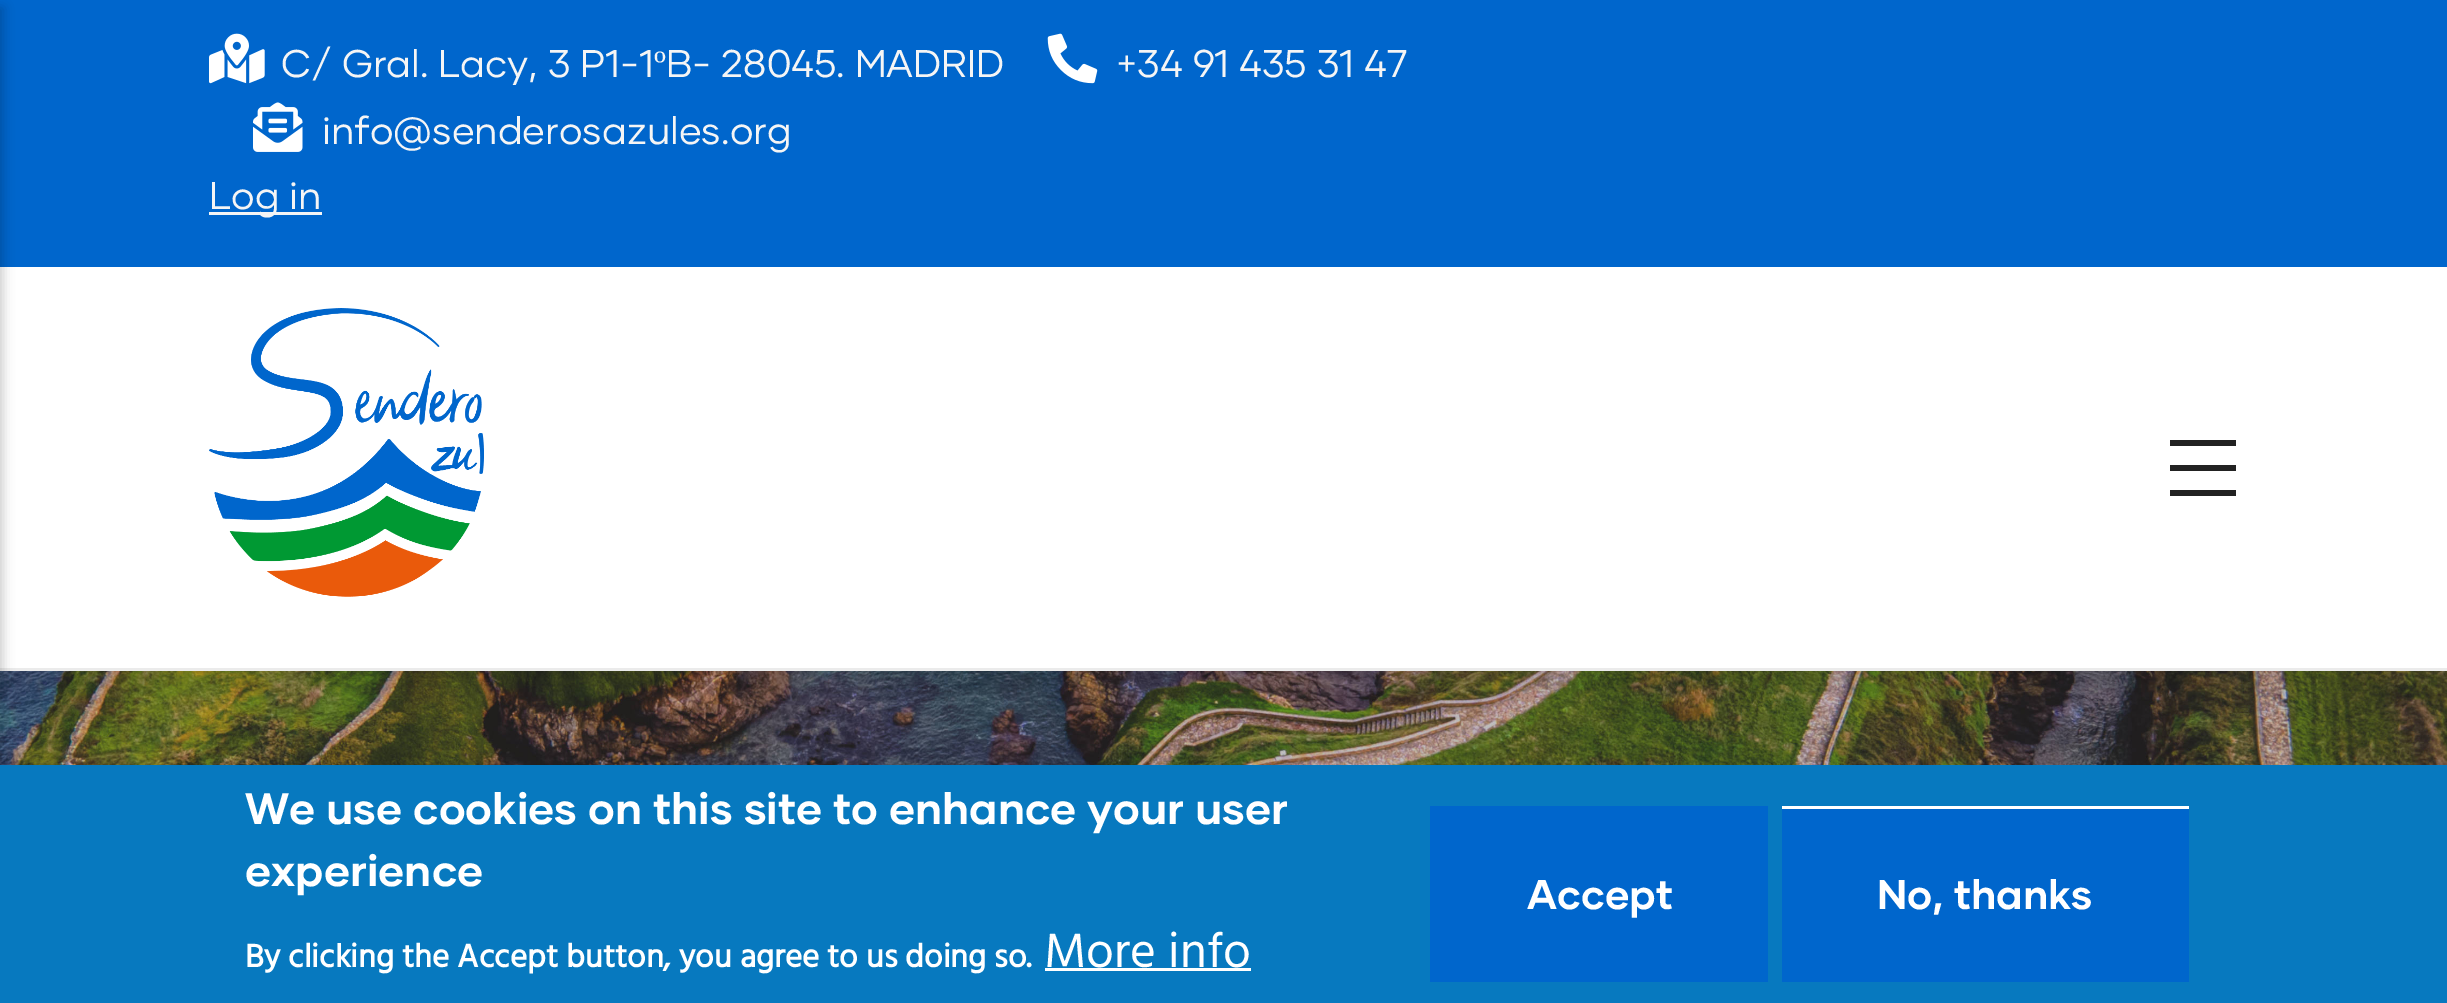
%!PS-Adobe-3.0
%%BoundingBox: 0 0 2447 1003
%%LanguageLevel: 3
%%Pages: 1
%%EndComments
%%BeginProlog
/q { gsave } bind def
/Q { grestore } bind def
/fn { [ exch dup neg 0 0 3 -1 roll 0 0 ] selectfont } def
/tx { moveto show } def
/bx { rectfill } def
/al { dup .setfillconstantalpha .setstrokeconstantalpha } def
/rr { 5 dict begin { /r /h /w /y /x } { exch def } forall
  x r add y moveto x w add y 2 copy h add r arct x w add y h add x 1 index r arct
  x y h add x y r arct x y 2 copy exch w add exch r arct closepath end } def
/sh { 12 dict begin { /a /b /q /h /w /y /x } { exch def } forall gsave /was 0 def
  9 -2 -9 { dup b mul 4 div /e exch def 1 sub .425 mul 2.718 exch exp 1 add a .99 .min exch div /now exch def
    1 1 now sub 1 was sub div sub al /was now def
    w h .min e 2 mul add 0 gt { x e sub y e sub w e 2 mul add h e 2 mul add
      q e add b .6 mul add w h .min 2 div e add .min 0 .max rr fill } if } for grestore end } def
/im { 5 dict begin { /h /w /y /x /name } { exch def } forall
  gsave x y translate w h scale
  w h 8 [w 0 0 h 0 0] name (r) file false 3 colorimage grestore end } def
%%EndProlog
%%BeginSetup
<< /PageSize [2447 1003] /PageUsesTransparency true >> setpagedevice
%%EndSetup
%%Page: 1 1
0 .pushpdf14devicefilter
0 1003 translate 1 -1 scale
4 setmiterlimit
1 setgray
0 0 2447 1003 bx
(image4.raw) 0 671 2447 94 im
q
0 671 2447 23 rectclip
0 setgray
-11 -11 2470 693 0 14 0.1 sh
Q
0.922 setgray
0 668 2447 3 bx
0 0.4 0.8 setrgbcolor
0 0 2447 267 bx
0 setgray
-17 8 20 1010 0 5.5 0.2 sh
0.133 setgray
2170 440 66 6 bx
2170 465 66 6 bx
2170 490 66 6 bx
(image0.raw) 209 308 275 289 im
(image1.raw) 209 33 56 51 im
/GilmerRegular-Regular 38.5 fn
0.961 setgray
(C/ Gral. Lacy, 3 P1-1) 281 77 tx
/LiberationSerif-Regular 38.5 fn
(º) 654 77 tx
/GilmerRegular-Regular 38.5 fn
(B- 28045. MADRID) 666 77 tx
(image2.raw) 1047 33 51 51 im
(+34 91 435 31 47) 1116 77 tx
(image3.raw) 253 102 50 50 im
(info@senderosazules.org) 322 144 tx
209 212 113 3 bx
(Log in) 209 209 tx
0.027 0.475 0.749 setrgbcolor
0 765 2447 238 bx
/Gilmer-Bold 44 fn
1 setgray
(We use cookies on this site to enhance your user) 245 824 tx
(experience) 245 886 tx
/Hind-Bold 33 fn
(By clicking the Accept button, you agree to us doing so.) 245 967 tx
/Hind-Regular 49.5 fn
(More info) 1044 967 tx
1045 968 206 3 bx
0 0.4 0.8 setrgbcolor
1430 806 338 176 bx
/Gilmer-Bold 41.25 fn
1 setgray
(Accept) 1527 909 tx
0 0.4 0.8 setrgbcolor
1782 809 407 173 bx
1 setgray
1782 806 407 3 bx
(No, thanks) 1877 909 tx
.poppdf14devicefilter showpage
%%EOF
